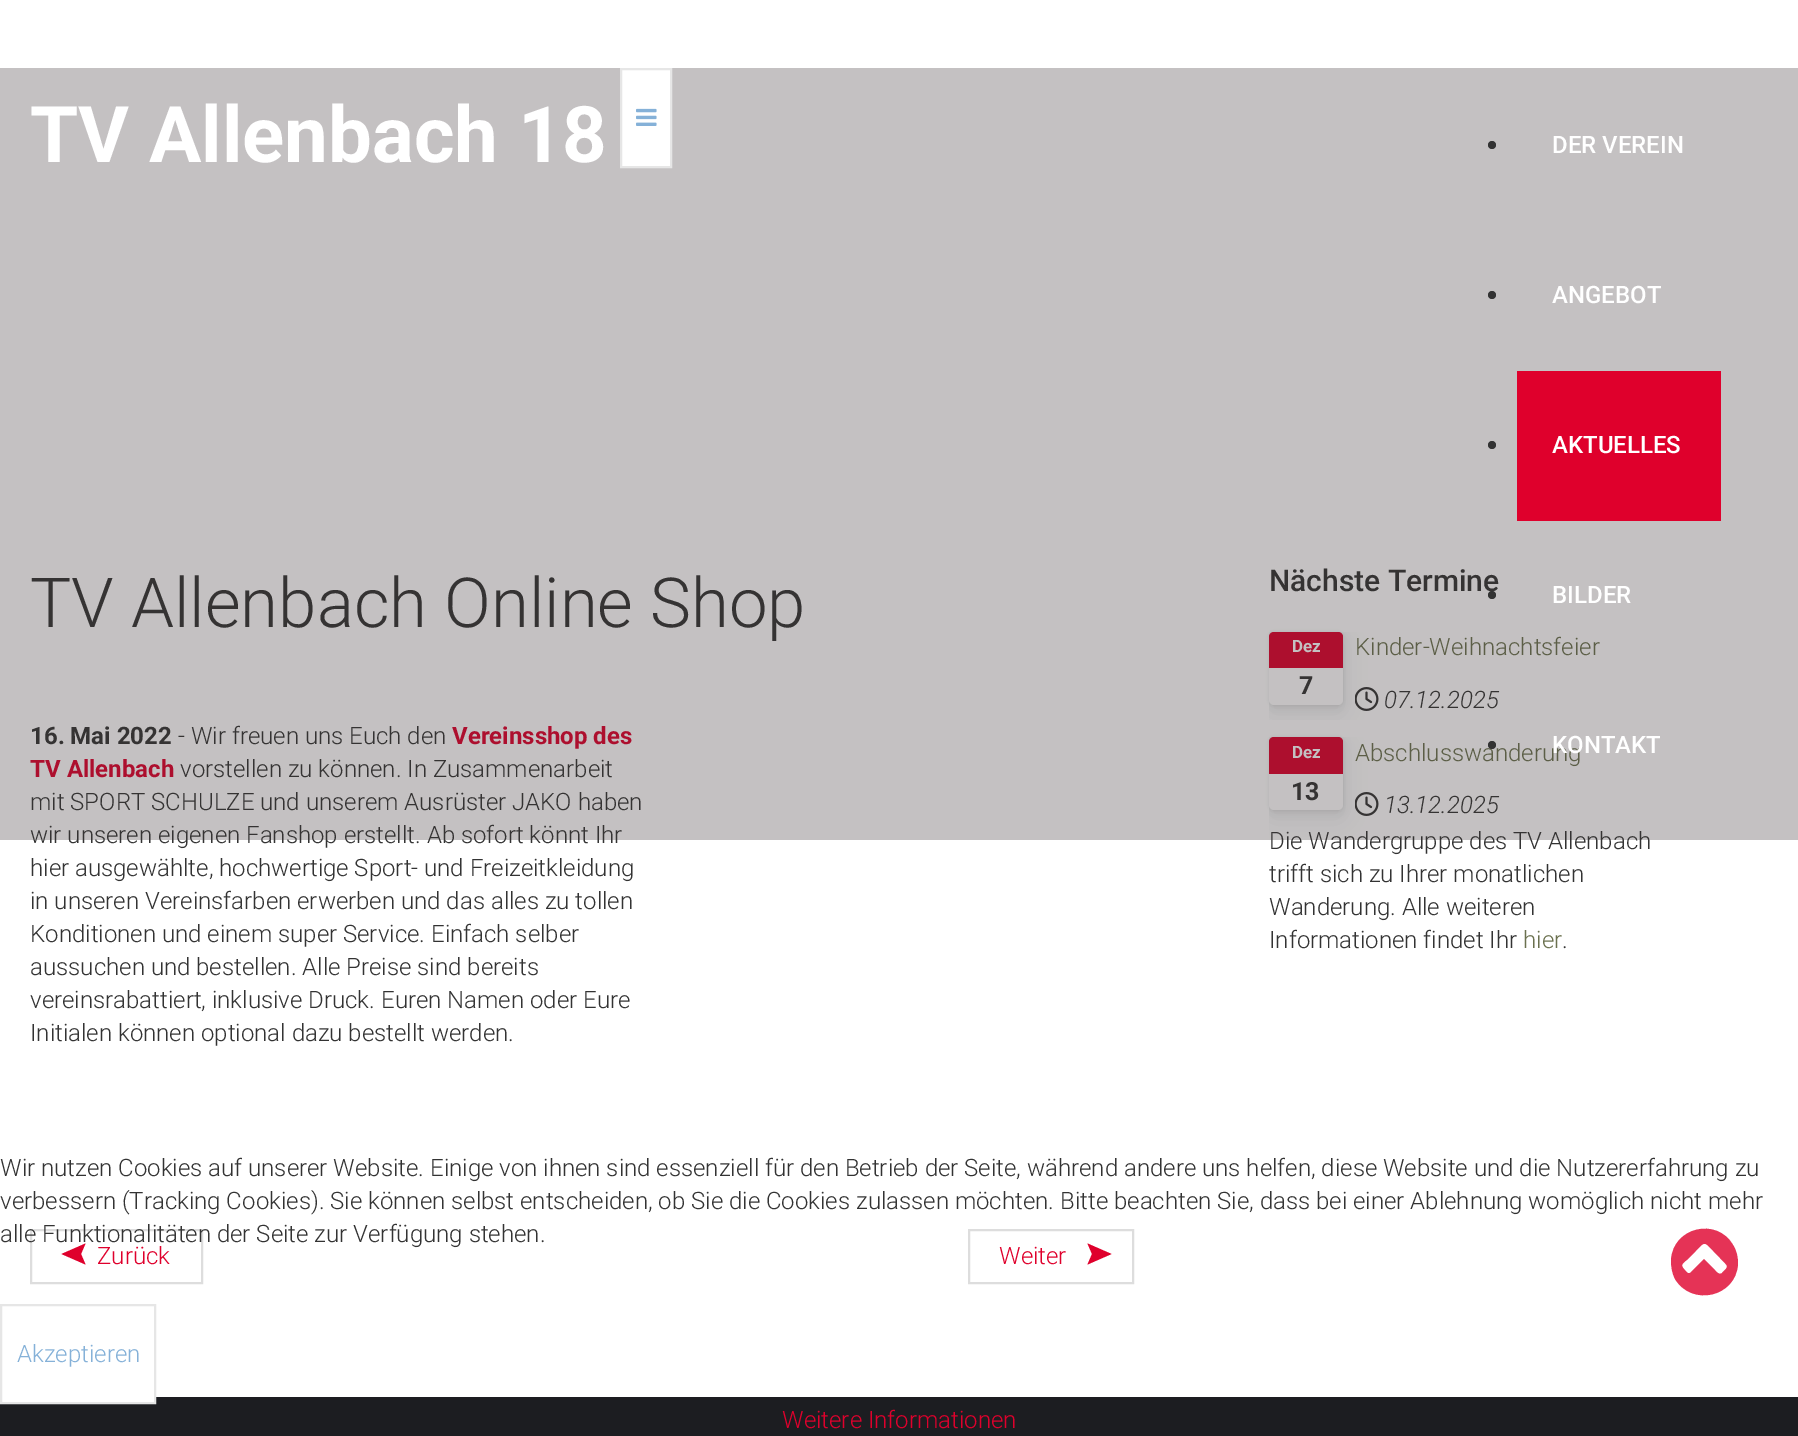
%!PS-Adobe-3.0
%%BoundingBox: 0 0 1798 1436
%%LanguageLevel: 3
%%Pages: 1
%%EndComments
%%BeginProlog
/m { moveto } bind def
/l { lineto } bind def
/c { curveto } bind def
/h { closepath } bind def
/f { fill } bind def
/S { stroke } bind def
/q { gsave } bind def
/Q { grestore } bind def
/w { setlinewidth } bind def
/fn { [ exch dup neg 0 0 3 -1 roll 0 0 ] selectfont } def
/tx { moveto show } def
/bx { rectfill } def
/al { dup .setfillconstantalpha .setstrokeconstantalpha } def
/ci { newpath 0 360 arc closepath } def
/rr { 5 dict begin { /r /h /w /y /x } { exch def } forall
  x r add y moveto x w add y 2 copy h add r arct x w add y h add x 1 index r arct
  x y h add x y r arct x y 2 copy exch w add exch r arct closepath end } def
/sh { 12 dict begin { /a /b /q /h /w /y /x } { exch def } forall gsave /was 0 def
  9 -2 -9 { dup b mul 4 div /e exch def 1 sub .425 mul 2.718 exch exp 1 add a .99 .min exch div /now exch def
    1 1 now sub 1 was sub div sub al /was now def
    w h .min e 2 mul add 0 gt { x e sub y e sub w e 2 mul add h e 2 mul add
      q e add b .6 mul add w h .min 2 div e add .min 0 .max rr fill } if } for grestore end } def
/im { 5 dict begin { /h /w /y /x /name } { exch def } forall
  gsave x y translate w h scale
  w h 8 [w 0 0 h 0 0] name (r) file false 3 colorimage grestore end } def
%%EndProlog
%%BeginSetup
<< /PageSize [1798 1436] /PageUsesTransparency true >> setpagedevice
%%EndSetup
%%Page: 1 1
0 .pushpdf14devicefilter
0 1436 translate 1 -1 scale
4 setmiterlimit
1 setgray
0 0 1798 1436 bx
/Roboto-Light 69 fn
0.2 setgray
(TV Allenbach Online Shop) 30 627 tx
/Roboto-Bold 24 fn
(16. Mai 2022) 30 744 tx
/Roboto-Light 24 fn
(- Wir freuen uns Euch den) 178 744 tx
/Roboto-Bold 24 fn
0.875 0 0.173 setrgbcolor
(Vereinsshop des) 452 744 tx
(TV Allenbach) 30 777 tx
/Roboto-Light 24 fn
0.2 setgray
(vorstellen zu können. In Zusammenarbeit) 180 777 tx
(mit SPORT SCHULZE und unserem Ausrüster JAKO haben) 30 810 tx
(wir unseren eigenen Fanshop erstellt. Ab sofort könnt Ihr) 30 843 tx
/Roboto-Medium 30 fn
(Nächste Termine) 1269 591 tx
(image1.raw) 1355 687 24 24 im
q
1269 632 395 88 rectclip
0.204 0.227 0.263 setrgbcolor
1269 639 74 74 5 11 0.08 sh
1269 635 74 73 5 4 0.08 sh
Q
0.204 0.227 0.263 setrgbcolor
1269 632 74 73 5 1.5 0.1 sh
1 setgray
1269 632 74 73 5 rr f
0.875 0 0.173 setrgbcolor
1269 664 m 1269 668 l 1343 668 l 1343 637 l 1343 635 l 1342 664 l h f
1274 632 m 1338 632 l 1341 632 1343 634 1343 637 c 1343 665 l 1269 665 l 1269 637 l 1269 634 1271 632 1274 632 c h f
/Roboto-Bold 17 fn
1 setgray
(Dez) 1292 652 tx
/Roboto-Bold 25 fn
0.2 setgray
(7) 1299 694 tx
/Roboto-Light 24 fn
0.42 0.443 0.31 setrgbcolor
(Kinder-Weihnachtsfeier) 1355 655 tx
/Roboto-LightItalic 24 fn
0.2 setgray
(07.12.2025) 1384 708 tx
(image1.raw) 1355 792 24 24 im
q
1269 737 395 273 rectclip
0.204 0.227 0.263 setrgbcolor
1269 744 74 74 5 11 0.08 sh
1269 740 74 73 5 4 0.08 sh
Q
0.204 0.227 0.263 setrgbcolor
1269 737 74 73 5 1.5 0.1 sh
1 setgray
1269 737 74 73 5 rr f
0.875 0 0.173 setrgbcolor
1269 771 m 1269 774 l 1343 774 l 1343 742 l 1343 740 l 1342 771 l h f
1274 737 m 1338 737 l 1341 737 1343 739 1343 742 c 1343 771 l 1269 771 l 1269 742 l 1269 739 1271 737 1274 737 c h f
/Roboto-Bold 17 fn
1 setgray
(Dez) 1292 758 tx
/Roboto-Bold 25 fn
0.2 setgray
(13) 1291 800 tx
/Roboto-Light 24 fn
0.42 0.443 0.31 setrgbcolor
(Abschlusswanderung) 1355 761 tx
/Roboto-LightItalic 24 fn
0.2 setgray
(13.12.2025) 1384 813 tx
/Roboto-Light 24 fn
(Die Wandergruppe des TV Allenbach) 1269 849 tx
0.3 al
0.227 0.2 0.204 setrgbcolor
0 68 1798 772 bx
/Roboto-Bold 78 fn
1 al
1 setgray
(TV Allenbach 18) 30 162 tx
621 69 m 671 69 l 671 167 l 621 167 l h q f Q
0.902 setgray
2 w
S
(image0.raw) 636 108 21 18 im
0.2 setgray
1492 145 4 ci f
/Roboto-Medium 24 fn
1 setgray
(DER VEREIN) 1552 153 tx
0.2 setgray
1492 295 4 ci f
1 setgray
(ANGEBOT) 1552 303 tx
0.2 setgray
1492 445 4 ci f
0.875 0 0.173 setrgbcolor
1517 371 204 150 bx
1 setgray
(AKTUELLES) 1552 453 tx
0.2 setgray
1492 595 4 ci f
1 setgray
(BILDER) 1552 603 tx
0.2 setgray
1492 745 4 ci f
1 setgray
(KONTAKT) 1552 753 tx
/Roboto-Light 24 fn
0.2 setgray
(hier ausgewählte, hochwertige Sport- und Freizeitkleidung) 30 876 tx
(in unseren Vereinsfarben erwerben und das alles zu tollen) 30 909 tx
(Konditionen und einem super Service. Einfach selber) 30 942 tx
(aussuchen und bestellen. Alle Preise sind bereits) 30 975 tx
(vereinsrabattiert, inklusive Druck. Euren Namen oder Eure) 30 1008 tx
(Initialen können optional dazu bestellt werden.) 30 1041 tx
0.867 setgray
31 1230 171 53 rectstroke
0.875 0 0.173 setrgbcolor
61.5 1254 m 85.5 1243.5 l 81 1254 l 85.5 1264.5 l h f
(Zurück) 97 1264 tx
0.867 setgray
969 1230 164 53 rectstroke
0.875 0 0.173 setrgbcolor
(Weiter) 999 1264 tx
1111.5 1254 m 1087.5 1264.5 l 1092 1254 l 1087.5 1243.5 l h f
0.2 setgray
(trifft sich zu Ihrer monatlichen) 1269 882 tx
(Wanderung. Alle weiteren) 1269 915 tx
(Informationen findet Ihr) 1269 948 tx
0.42 0.443 0.31 setrgbcolor
(hier) 1523 948 tx
0.2 setgray
(.) 1562 948 tx
(Wir nutzen Cookies auf unserer Website. Einige von ihnen sind essenziell für den Betrieb der Seite, während andere uns helfen, diese Website und die Nutzererfahrung zu) 0 1176 tx
(verbessern \(Tracking Cookies\). Sie können selbst entscheiden, ob Sie die Cookies zulassen möchten. Bitte beachten Sie, dass bei einer Ablehnung womöglich nicht mehr) 0 1209 tx
(alle Funktionalitäten der Seite zur Verfügung stehen.) 0 1242 tx
0.11 0.114 0.129 setrgbcolor
0 1397 1798 39 bx
1 setgray
2 1397 152 5 bx
0.902 setgray
1 1305 154 98 rectstroke
0.522 0.694 0.847 setrgbcolor
(Akzeptieren) 17 1362 tx
0.875 0 0.173 setrgbcolor
(Weitere Informationen) 782 1428 tx
0.898 0.2 0.337 setrgbcolor
1722 1273 m 1730 1265 1728 1267 1720 1258 c 1701 1239 1708 1239 1689 1258 c 1685 1262 1679 1264 1684 1269 c 1688 1274 1689 1275 1693 1270 c 1704 1259 l 1713 1268 l 1715 1270 1719 1276 1722 1273 c h 1733 1245 m 1737 1251 1738 1258 1738 1264 c 1736 1297 1692 1307 1675 1279 c 1672 1273 1671 1267 1671 1260 c 1673 1227 1717 1217 1733 1245 c h f
.poppdf14devicefilter showpage
%%EOF
